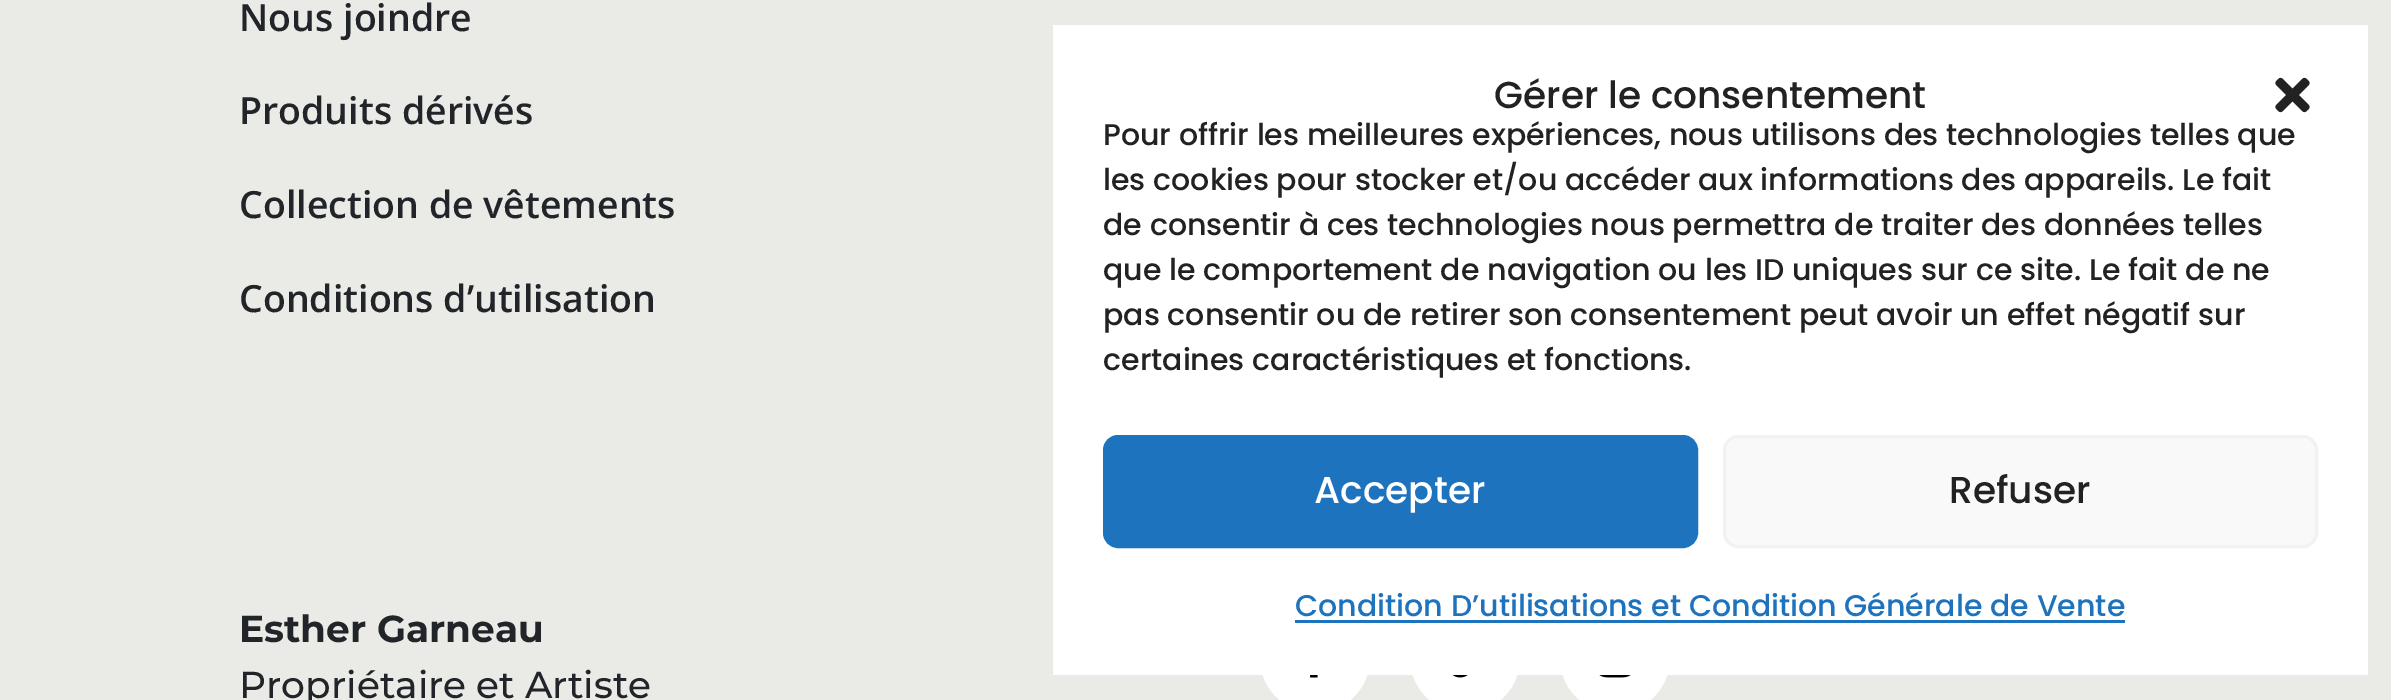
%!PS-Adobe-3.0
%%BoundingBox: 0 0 2391 700
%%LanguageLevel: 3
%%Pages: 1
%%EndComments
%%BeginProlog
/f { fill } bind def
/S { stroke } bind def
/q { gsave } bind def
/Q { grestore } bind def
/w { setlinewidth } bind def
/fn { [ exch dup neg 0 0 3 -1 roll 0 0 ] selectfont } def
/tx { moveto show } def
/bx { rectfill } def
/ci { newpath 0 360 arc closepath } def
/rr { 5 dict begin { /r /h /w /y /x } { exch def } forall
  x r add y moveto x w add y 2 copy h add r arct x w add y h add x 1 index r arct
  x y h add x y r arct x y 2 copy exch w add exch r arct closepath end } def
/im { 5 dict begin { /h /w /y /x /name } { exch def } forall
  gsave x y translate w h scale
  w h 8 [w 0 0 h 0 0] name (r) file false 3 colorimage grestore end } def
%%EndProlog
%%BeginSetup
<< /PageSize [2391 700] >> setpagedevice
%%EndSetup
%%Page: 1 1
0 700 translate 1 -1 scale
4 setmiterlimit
0.918 0.922 0.902 setrgbcolor
0 0 2391 700 bx
/OpenSans-SemiBold 37.5 fn
0.129 0.145 0.161 setrgbcolor
(Nous joindre) 239 31 tx
(Produits dérivés) 239 124 tx
(Collection de vêtements) 239 218 tx
(Conditions d’utilisation) 239 312 tx
/Montserrat-Thin 37.5 fn
(Esther Garneau) 239 642 tx
/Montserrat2-Thin 37.5 fn
(Propriétaire et Artiste) 239 698 tx
1 setgray
1315 658 55 ci f
(image0.raw) 1310 675 8 3 im
1465 658 55 ci f
(image1.raw) 1452 675 16 3 im
1615 658 55 ci f
(image2.raw) 1599 675 32 3 im
1053 25 1315 650 bx
/Poppins-Medium 37.5 fn
0.133 setgray
(Gérer le consentement) 1494 108 tx
(image3.raw) 2275 77 35 36 im
/Poppins-Medium 30 fn
(Pour offrir les meilleures expériences, nous utilisons des technologies telles que) 1103 145 tx
(les cookies pour stocker et/ou accéder aux informations des appareils. Le fait) 1103 190 tx
(de consentir à ces technologies nous permettra de traiter des données telles) 1103 235 tx
(que le comportement de navigation ou les ID uniques sur ce site. Le fait de ne) 1103 280 tx
(pas consentir ou de retirer son consentement peut avoir un effet négatif sur) 1103 325 tx
(certaines caractéristiques et fonctions.) 1103 370 tx
0.118 0.451 0.745 setrgbcolor
1104.5 436.5 592 110 13.5 rr q f Q
3 w
S
/Poppins-Medium 37.5 fn
1 setgray
(Accepter) 1314 503 tx
0.976 setgray
1724.5 436.5 592 110 13.5 rr q f Q
0.949 setgray
S
0.133 setgray
(Refuser) 1949 503 tx
/Poppins-Medium 30 fn
0.118 0.451 0.745 setrgbcolor
(Condition D’utilisations et Condition Générale de Vente) 1295 616 tx
1295 620 830 3 bx
showpage
%%EOF
